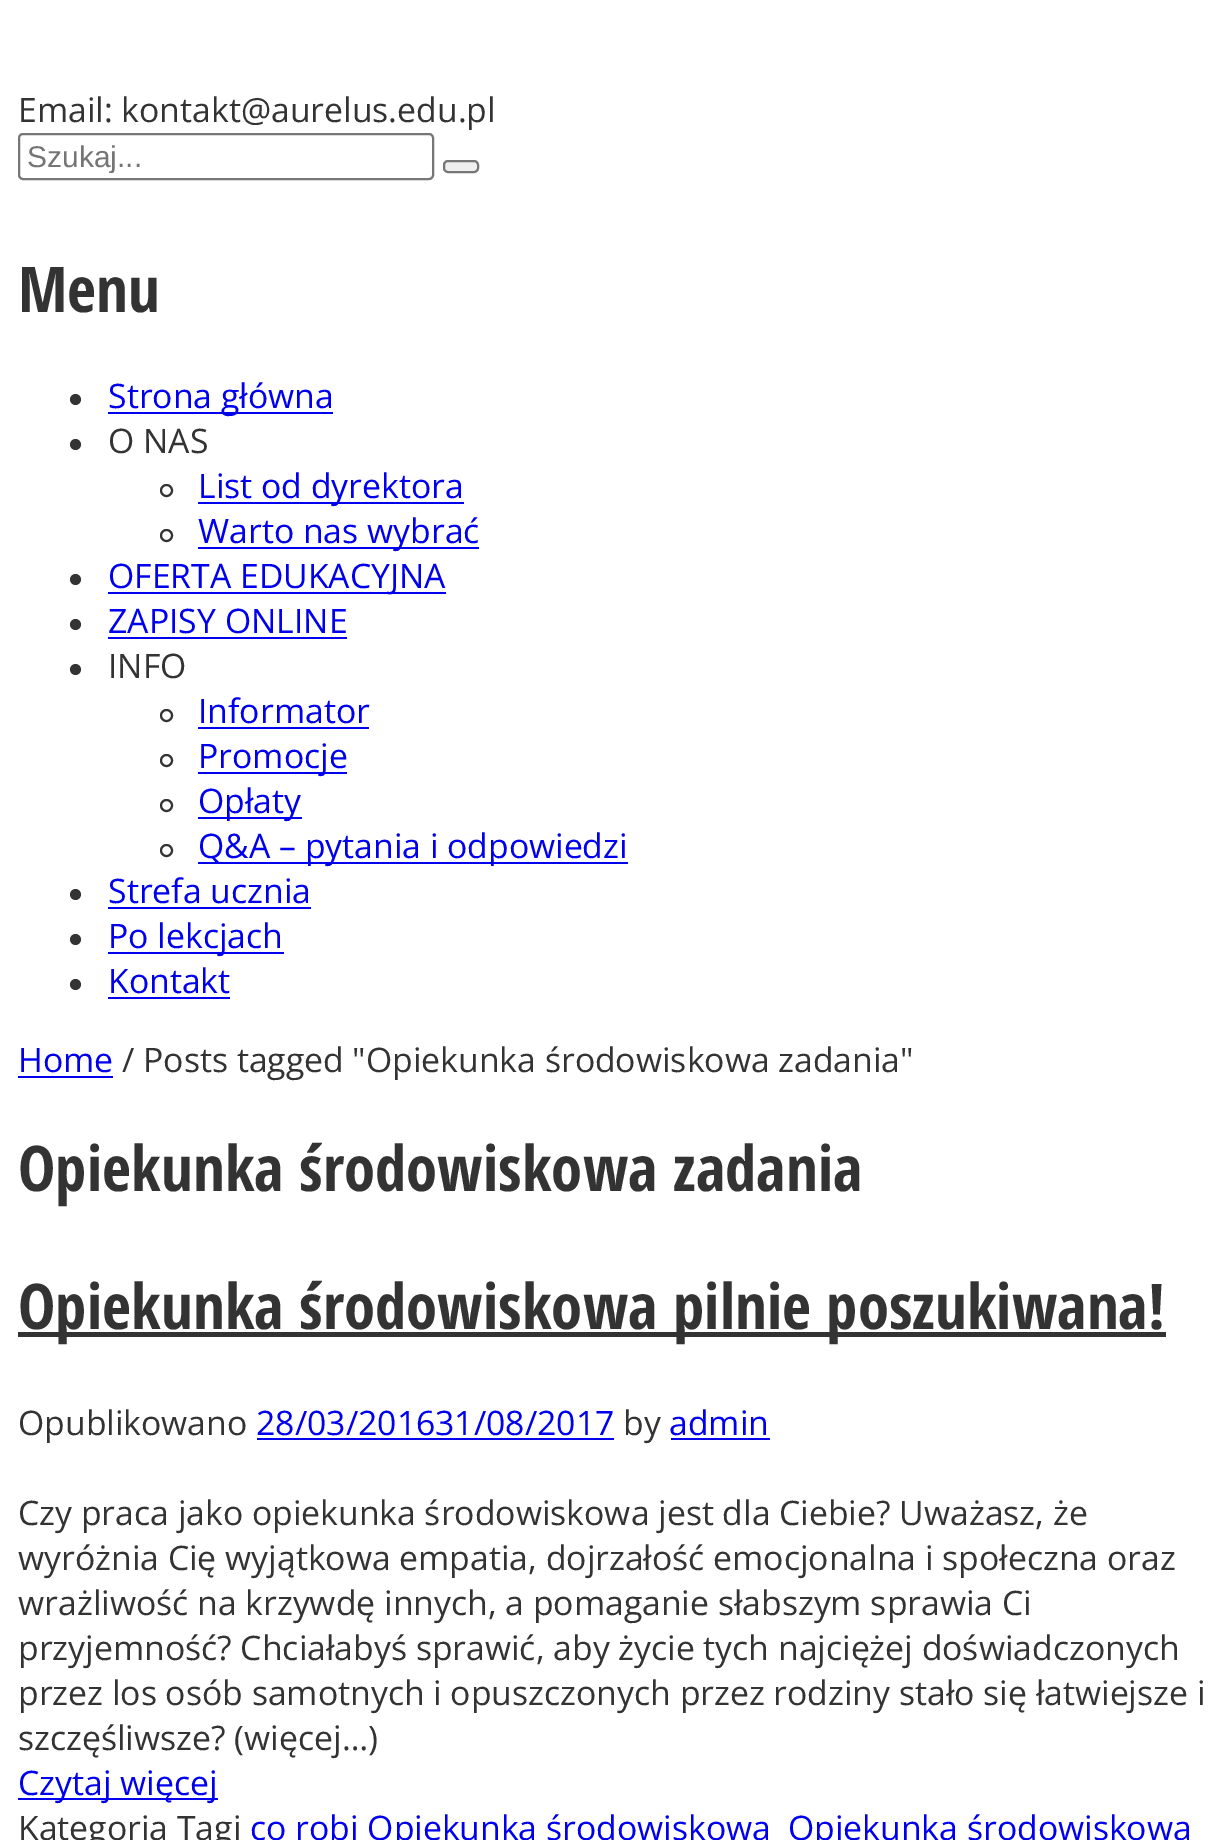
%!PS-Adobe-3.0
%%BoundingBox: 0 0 1227 1840
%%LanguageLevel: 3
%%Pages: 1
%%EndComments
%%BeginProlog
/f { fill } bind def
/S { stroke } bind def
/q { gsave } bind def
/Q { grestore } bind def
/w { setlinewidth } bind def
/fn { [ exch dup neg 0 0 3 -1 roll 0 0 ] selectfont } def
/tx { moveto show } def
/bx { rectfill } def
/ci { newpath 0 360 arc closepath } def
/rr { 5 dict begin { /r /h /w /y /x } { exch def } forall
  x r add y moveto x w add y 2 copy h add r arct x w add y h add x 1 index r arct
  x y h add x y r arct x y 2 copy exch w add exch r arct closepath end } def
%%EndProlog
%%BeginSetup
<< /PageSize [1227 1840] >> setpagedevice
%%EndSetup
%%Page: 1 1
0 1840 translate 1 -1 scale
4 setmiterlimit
1 setgray
0 0 1227 1840 bx
/OpenSans-Regular 33.75 fn
0.2 setgray
(Email: kontakt@aurelus.edu.pl) 18 122 tx
0.463 setgray
2 w
19 134 414 45 4 rr S
q
27 140 398 33 rectclip
/LiberationSans-Regular 30 fn
0.459 setgray
(Szukaj...) 27 167 tx
Q
0.937 setgray
444 161 34 11 4 rr q f Q
0.463 setgray
S
/OpenSansCondensed-Bold 63 fn
0.2 setgray
(Menu) 18 312 tx
75.5 399.5 5.5 ci f
0 0 0.933 setrgbcolor
108 412 225 2 bx
/OpenSans-Regular 33.75 fn
(Strona główna) 108 408 tx
0.2 setgray
75.5 444.5 5.5 ci f
(O NAS) 108 453 tx
166.5 490.5 5.5 ci S
0 0 0.933 setrgbcolor
198 502 266 2 bx
(List od dyrektora) 198 498 tx
0.2 setgray
166.5 535.5 5.5 ci S
0 0 0.933 setrgbcolor
198 547 281 2 bx
(Warto nas wybrać) 198 543 tx
0.2 setgray
75.5 579.5 5.5 ci f
0 0 0.933 setrgbcolor
108 592 338 2 bx
(OFERTA EDUKACYJNA) 108 588 tx
0.2 setgray
75.5 624.5 5.5 ci f
0 0 0.933 setrgbcolor
(ZAPISY ONLINE) 108 633 tx
108 637 239 2 bx
0.2 setgray
75.5 669.5 5.5 ci f
(INFO) 108 678 tx
166.5 715.5 5.5 ci S
0 0 0.933 setrgbcolor
(Informator) 198 723 tx
198 727 171 2 bx
0.2 setgray
166.5 760.5 5.5 ci S
0 0 0.933 setrgbcolor
198 772 149 2 bx
(Promocje) 198 768 tx
0.2 setgray
166.5 805.5 5.5 ci S
0 0 0.933 setrgbcolor
198 817 104 2 bx
(Opłaty) 198 813 tx
0.2 setgray
166.5 850.5 5.5 ci S
0 0 0.933 setrgbcolor
198 862 430 2 bx
(Q&A – pytania i odpowiedzi) 198 858 tx
0.2 setgray
75.5 894.5 5.5 ci f
0 0 0.933 setrgbcolor
(Strefa ucznia) 108 903 tx
108 907 203 2 bx
0.2 setgray
75.5 939.5 5.5 ci f
0 0 0.933 setrgbcolor
108 952 176 2 bx
(Po lekcjach) 108 948 tx
0.2 setgray
75.5 984.5 5.5 ci f
0 0 0.933 setrgbcolor
(Kontakt) 108 993 tx
108 997 122 2 bx
(Home) 18 1072 tx
18 1076 95 2 bx
0.2 setgray
(/ Posts tagged "Opiekunka środowiskowa zadania") 122 1072 tx
/OpenSansCondensed-Bold 63 fn
(Opiekunka środowiskowa zadania) 18 1191 tx
18 1332 1148 5 bx
(Opiekunka środowiskowa pilnie poszukiwana!) 18 1329 tx
/OpenSans-Regular 33.75 fn
(Opublikowano) 18 1435 tx
0 0 0.933 setrgbcolor
(28/03/201631/08/2017) 256 1435 tx
257 1438 357 2 bx
0.2 setgray
(by) 623 1435 tx
0 0 0.933 setrgbcolor
(admin) 669 1435 tx
671 1438 99 2 bx
0.2 setgray
(Czy praca jako opiekunka środowiskowa jest dla Ciebie? Uważasz, że) 18 1525 tx
(wyróżnia Cię wyjątkowa empatia, dojrzałość emocjonalna i społeczna oraz) 18 1570 tx
(wrażliwość na krzywdę innych, a pomaganie słabszym sprawia Ci) 18 1615 tx
(przyjemność? Chciałabyś sprawić, aby życie tych najciężej doświadczonych) 18 1660 tx
(przez los osób samotnych i opuszczonych przez rodziny stało się łatwiejsze i) 18 1705 tx
(szczęśliwsze? \(więcej…\)) 18 1750 tx
0 0 0.933 setrgbcolor
18 1798 200 2 bx
(Czytaj więcej) 18 1795 tx
0.2 setgray
(Kategoria Tagi) 18 1840 tx
0 0 0.933 setrgbcolor
(co robi Opiekunka środowiskowa) 250 1840 tx
(Opiekunka środowiskowa) 788 1840 tx
showpage
%%EOF
